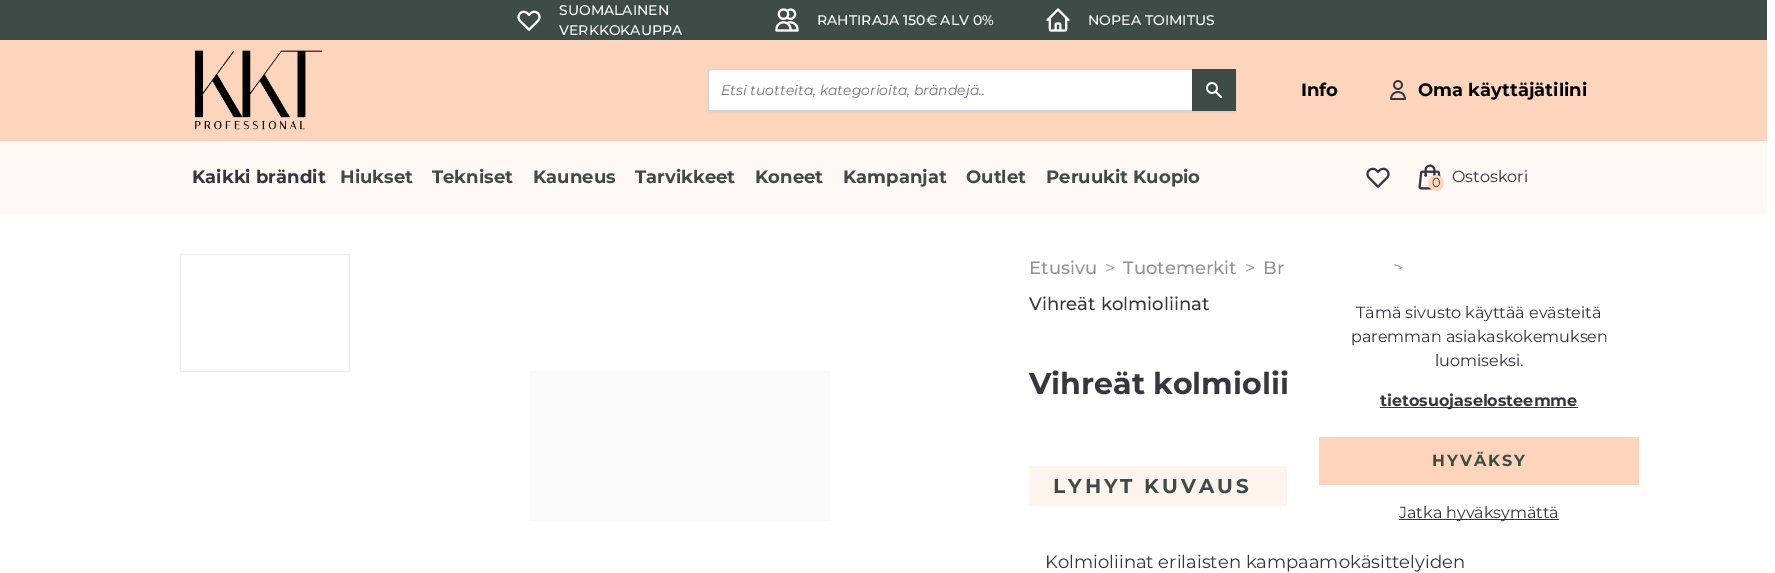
%!PS-Adobe-3.0
%%BoundingBox: 0 0 1775 573
%%LanguageLevel: 3
%%Pages: 1
%%EndComments
%%BeginProlog
/m { moveto } bind def
/f { fill } bind def
/S { stroke } bind def
/q { gsave } bind def
/Q { grestore } bind def
/fn { [ exch dup neg 0 0 3 -1 roll 0 0 ] selectfont } def
/tx { moveto show } def
/bx { rectfill } def
/al { dup .setfillconstantalpha .setstrokeconstantalpha } def
/rr { 5 dict begin { /r /h /w /y /x } { exch def } forall
  x r add y moveto x w add y 2 copy h add r arct x w add y h add x 1 index r arct
  x y h add x y r arct x y 2 copy exch w add exch r arct closepath end } def
/sh { 12 dict begin { /a /b /q /h /w /y /x } { exch def } forall gsave /was 0 def
  9 -2 -9 { dup b mul 4 div /e exch def 1 sub .425 mul 2.718 exch exp 1 add a .99 .min exch div /now exch def
    1 1 now sub 1 was sub div sub al /was now def
    w h .min e 2 mul add 0 gt { x e sub y e sub w e 2 mul add h e 2 mul add
      q e add b .6 mul add w h .min 2 div e add .min 0 .max rr fill } if } for grestore end } def
/im { 5 dict begin { /h /w /y /x /name } { exch def } forall
  gsave x y translate w h scale
  w h 8 [w 0 0 h 0 0] name (r) file false 3 colorimage grestore end } def
%%EndProlog
%%BeginSetup
<< /PageSize [1775 573] /PageUsesTransparency true >> setpagedevice
%%EndSetup
%%Page: 1 1
0 .pushpdf14devicefilter
0 573 translate 1 -1 scale
4 setmiterlimit
1 setgray
0 0 1775 573 bx
0.243 0.294 0.278 setrgbcolor
0 0 1767 40 bx
(image0.raw) 517 10 24 21 im
/Montserrat-Medium 14 fn
1 setgray
(SUOMALAINEN) 559 15 tx
(VERKKOKAUPPA) 559 35 tx
(image1.raw) 775 8 24 24 im
(RAHTIRAJA 150€ ALV 0%) 817 25 tx
(image2.raw) 1046 8 24 24 im
(NOPEA TOIMITUS) 1088 25 tx
0.992 0.835 0.741 setrgbcolor
0 40 1767 101 bx
(image3.raw) 194 50 129 80 im
0 setgray
708 70 528 42 2 1 0.05 sh
1 setgray
708.5 69.5 527 41 1.5 rr q f Q
0.82 0.835 0.859 setrgbcolor
S
/Montserrat-Italic 14 fn
0.42 0.447 0.502 setrgbcolor
(Etsi tuotteita, kategorioita, brändejä..) 721 95 tx
0.243 0.294 0.278 setrgbcolor
1192 69 44 42 bx
(image4.raw) 1206 82 16 16 im
/Montserrat-Bold 18 fn
0 setgray
(Info) 1301 96 tx
(image5.raw) 1390 80 16 20 im
(Oma käyttäjätilini) 1418 96 tx
1 0.976 0.961 setrgbcolor
0 141 1767 73 bx
0.216 0.212 0.251 setrgbcolor
(Kaikki brändit) 192 183 tx
0.243 0.294 0.278 setrgbcolor
(Hiukset) 340 183 tx
(Tekniset) 432 183 tx
(Kauneus) 533 183 tx
(Tarvikkeet) 635 183 tx
(Koneet) 755 183 tx
(Kampanjat) 843 183 tx
(Outlet) 966 183 tx
(Peruukit Kuopio) 1046 183 tx
(image6.raw) 1366 167 24 21 im
(image7.raw) 1418 164 26 27 im
/Montserrat-Regular 13 fn
(0) 1432 187 tx
/Montserrat-Regular 16 fn
0.216 0.212 0.251 setrgbcolor
(Ostoskori) 1452 182 tx
0.937 setgray
180.5 254.5 169 117 rectstroke
0.98 setgray
530 371 300 150 bx
/Montserrat-Medium 18 fn
0.576 setgray
(Etusivu) 1029 274 tx
/Montserrat-Regular 18 fn
(>) 1105 274 tx
/Montserrat-Medium 18 fn
(Tuotemerkit) 1123 274 tx
/Montserrat-Regular 18 fn
(>) 1245 274 tx
/Montserrat-Medium 18 fn
(Br) 1263 274 tx
/Montserrat-Regular 18 fn
(>) 1393 274 tx
/Montserrat-Medium 18 fn
0.216 0.212 0.251 setrgbcolor
(Vihreät kolmioliinat) 1029 310 tx
/Montserrat-Bold 30 fn
(Vihreät kolmiolii) 1029 394 tx
1 0.957 0.929 setrgbcolor
1029 466 258 40 bx
/Montserrat-Bold 20 fn
0.243 0.294 0.278 setrgbcolor
1053 493 m 3 0 (LYHYT KUVAUS) ashow
/Montserrat-Regular 18 fn
0.216 0.212 0.251 setrgbcolor
(Kolmioliinat erilaisten kampaamokäsittelyiden) 1045 568 tx
1 setgray
1394 269 7 3 bx
/Montserrat-Regular 16 fn
0.216 0.212 0.251 setrgbcolor
(Tämä sivusto käyttää evästeitä) 1356 318 tx
(paremman asiakaskokemuksen) 1351 342 tx
(luomiseksi.) 1435 366 tx
1380 407 198 1 bx
/Montserrat-Bold 16 fn
(tietosuojaselosteemme) 1380 406 tx
0.992 0.835 0.741 setrgbcolor
1319 437 320 48 bx
0.243 0.294 0.278 setrgbcolor
1432 466 m 2 0 (HYVÄKSY) ashow
0.216 0.212 0.251 setrgbcolor
1399 519 160 1 bx
/Montserrat-Regular 16 fn
(Jatka hyväksymättä) 1399 518 tx
.poppdf14devicefilter showpage
%%EOF
